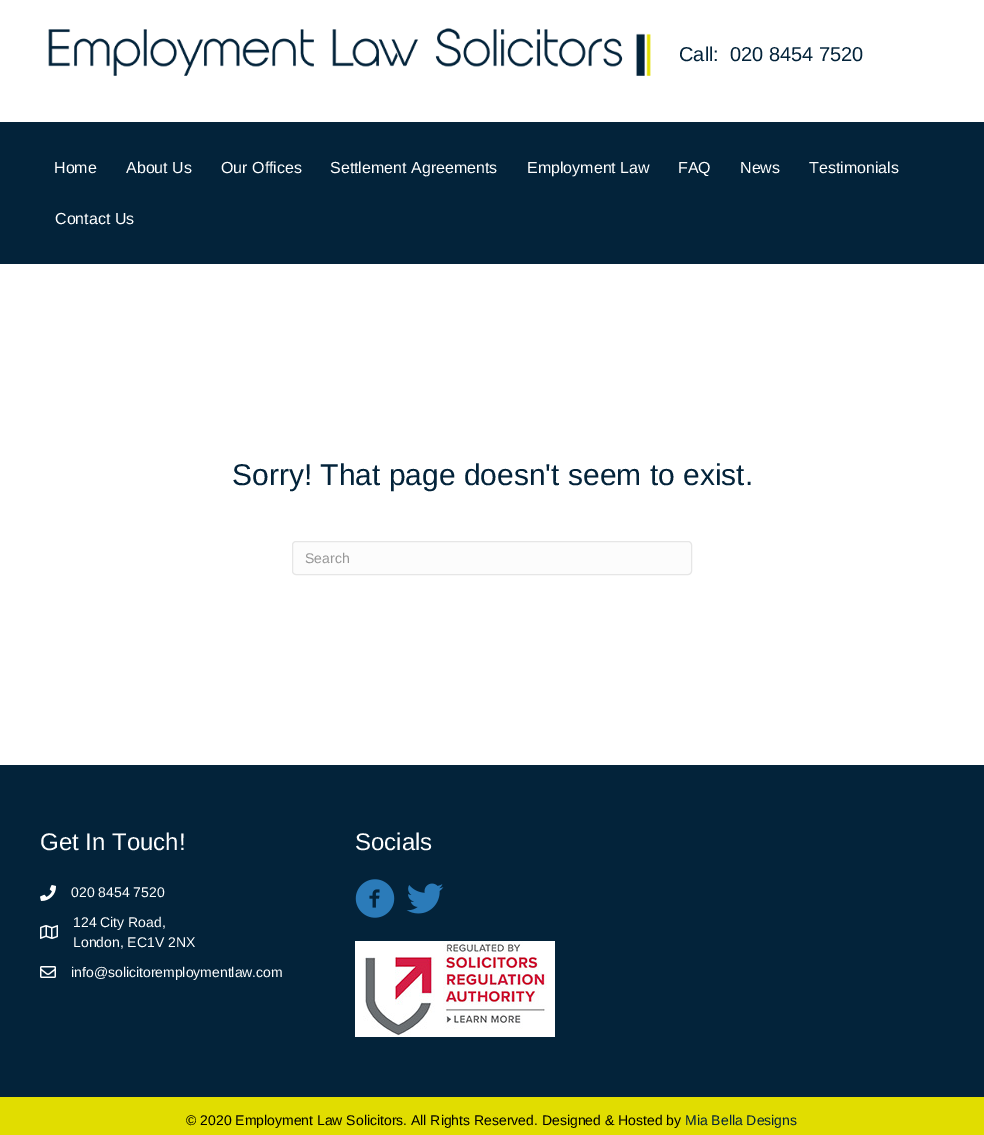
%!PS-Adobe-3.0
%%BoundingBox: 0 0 984 1135
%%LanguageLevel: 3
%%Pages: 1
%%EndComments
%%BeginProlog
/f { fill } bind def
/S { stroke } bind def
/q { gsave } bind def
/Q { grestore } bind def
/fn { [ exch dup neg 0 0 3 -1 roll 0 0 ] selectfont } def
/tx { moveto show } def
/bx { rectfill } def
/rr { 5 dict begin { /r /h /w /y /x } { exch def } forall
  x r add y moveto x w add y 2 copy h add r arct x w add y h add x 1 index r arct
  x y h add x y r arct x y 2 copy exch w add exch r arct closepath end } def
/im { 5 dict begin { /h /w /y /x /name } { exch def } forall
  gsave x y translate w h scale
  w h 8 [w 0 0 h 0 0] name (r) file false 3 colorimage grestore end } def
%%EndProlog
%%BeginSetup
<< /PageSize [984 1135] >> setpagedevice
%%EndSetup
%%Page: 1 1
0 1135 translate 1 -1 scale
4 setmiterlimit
1 setgray
0 0 984 1135 bx
(image0.raw) 48 28 603 48 im
/LiberationSans-Regular 20 fn
0.012 0.137 0.227 setrgbcolor
(Call:) 679 61 tx
(020 8454 7520) 730 61 tx
0 122 984 142 bx
/LiberationSans-Regular 16 fn
1 setgray
(Home) 54 173 tx
(About Us) 126 173 tx
(Our Offices) 221 173 tx
(Settlement Agreements) 330 173 tx
(Employment Law) 527 173 tx
(FAQ) 678 173 tx
(News) 740 173 tx
(Testimonials) 809 173 tx
(Contact Us) 55 224 tx
/LiberationSans-Regular 30 fn
0.012 0.137 0.227 setrgbcolor
(Sorry! That page doesn't seem to exist.) 232 485 tx
0.988 setgray
292.5 541.5 399 33 3.5 rr q f Q
0.902 setgray
S
/LiberationSans-Regular 14 fn
0.592 setgray
(Search) 305 563 tx
0.012 0.137 0.227 setrgbcolor
0 765 984 332 bx
/LiberationSans-Regular 24 fn
1 setgray
(Get In Touch!) 40 850 tx
(image1.raw) 40 885 16 16 im
/LiberationSans-Regular 14 fn
(020 8454 7520) 71 897 tx
(image2.raw) 40 925 18 14 im
(124 City Road,) 73 927 tx
(London, EC1V 2NX) 73 947 tx
(image3.raw) 40 966 16 12 im
(info@solicitoremploymentlaw.com) 71 977 tx
/LiberationSans-Regular 24 fn
(Socials) 355 850 tx
(image4.raw) 355 879 40 39 im
(image5.raw) 406 883 38 31 im
(image6.raw) 355 941 200 96 im
0.882 0.867 0 setrgbcolor
0 1097 984 38 bx
/LiberationSans-Regular 14 fn
0 setgray
(© 2020 Employment Law Solicitors. All Rights Reserved. Designed & Hosted by) 186 1125 tx
0.012 0.137 0.227 setrgbcolor
(Mia Bella Designs) 685 1125 tx
showpage
%%EOF
